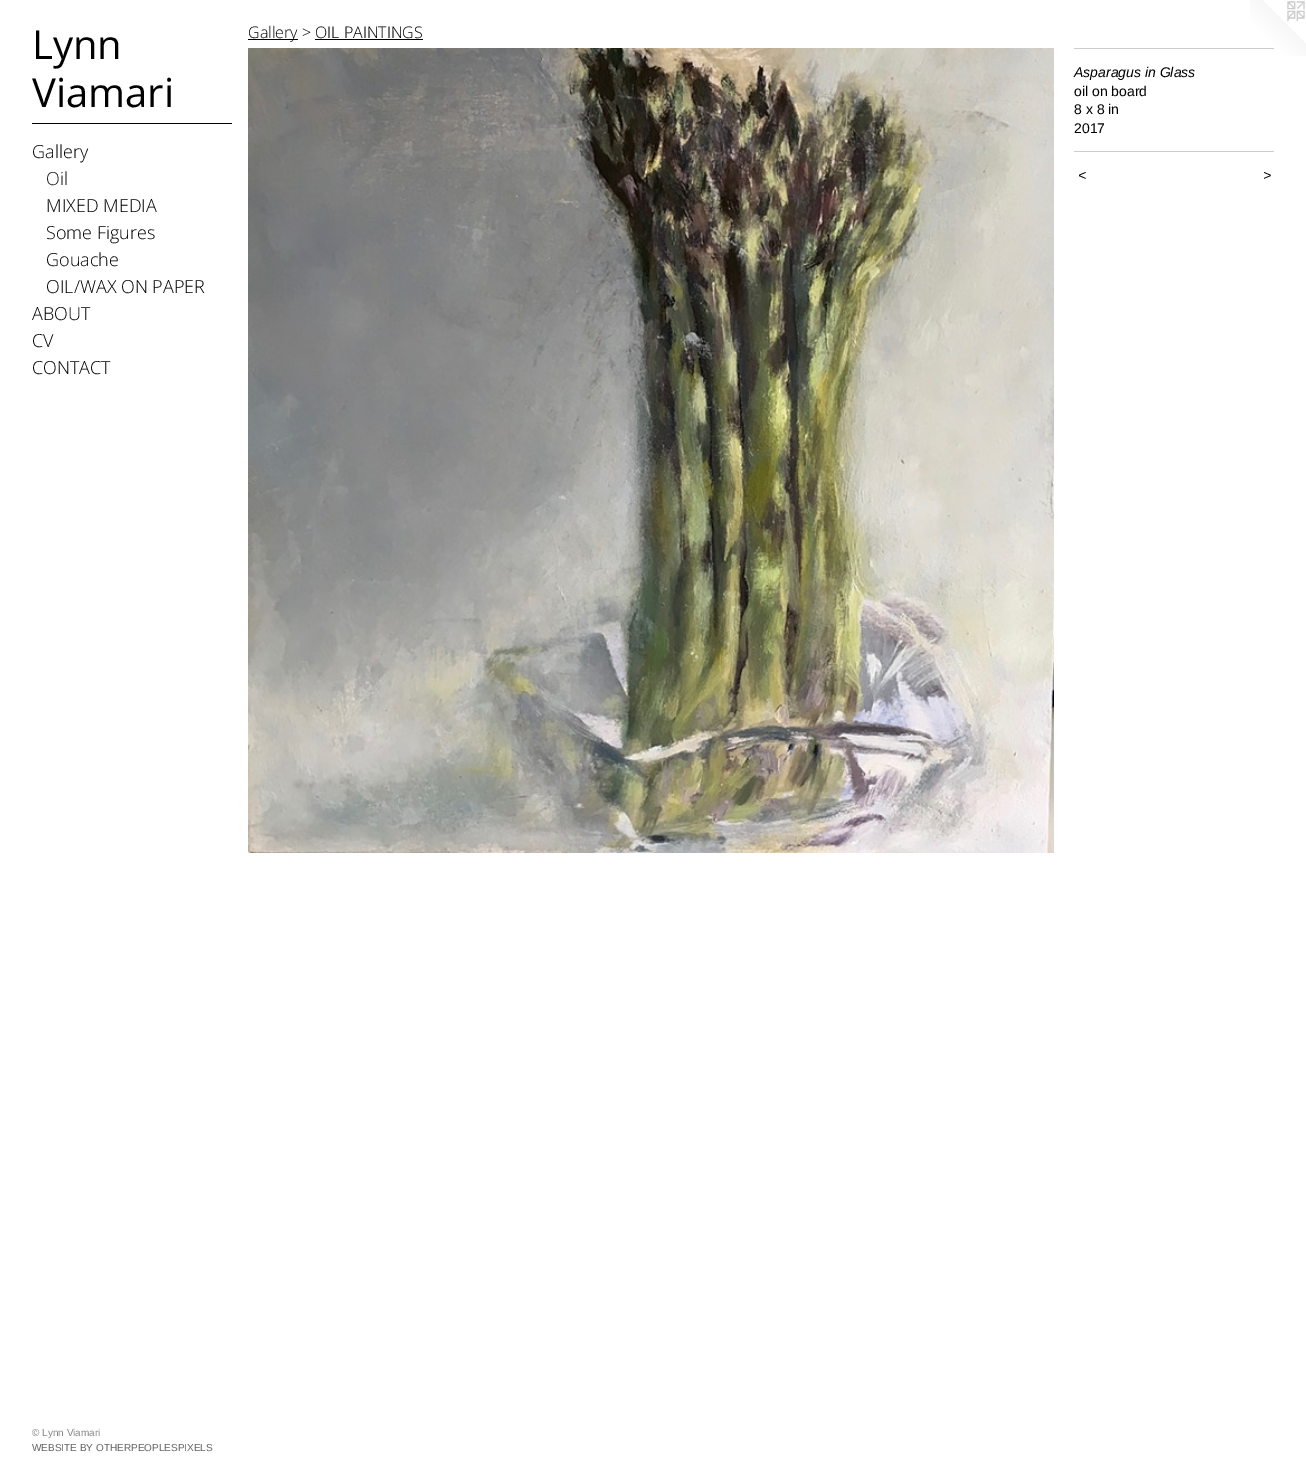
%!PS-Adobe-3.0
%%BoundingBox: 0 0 1306 1478
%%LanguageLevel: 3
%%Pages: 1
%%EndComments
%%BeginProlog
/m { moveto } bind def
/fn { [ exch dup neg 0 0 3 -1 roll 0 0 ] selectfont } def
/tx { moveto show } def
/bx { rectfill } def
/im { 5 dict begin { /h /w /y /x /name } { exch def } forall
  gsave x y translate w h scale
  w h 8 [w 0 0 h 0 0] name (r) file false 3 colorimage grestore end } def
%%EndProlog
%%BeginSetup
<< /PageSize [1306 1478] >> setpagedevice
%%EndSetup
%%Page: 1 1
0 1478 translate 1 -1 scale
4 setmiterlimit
1 setgray
0 0 1306 1478 bx
/OpenSans-Regular 40 fn
0 setgray
(Lynn) 32 59 tx
(Viamari) 32 107 tx
32 123 200 1 bx
/OpenSans-Light 18 fn
(Gallery) 32 158 tx
0.102 setgray
(Oil) 46 185 tx
0 setgray
(MIXED MEDIA) 46 212 tx
(Some Figures) 46 239 tx
(Gouache) 46 266 tx
(OIL/WAX ON PAPER) 46 293 tx
(ABOUT) 32 320 tx
(CV) 32 347 tx
(CONTACT) 32 374 tx
/LiberationSans-Regular 10 fn
0.522 setgray
(© Lynn Viamari) 32 1436 tx
0.388 setgray
(WEBSITE BY OTHERPEOPLESPIXELS) 32 1451 tx
0 setgray
248 39 50 1 bx
/OpenSans-Light 16 fn
(Gallery > OIL PAINTINGS) 248 38 tx
315 39 108 1 bx
(image0.raw) 248 48 806 805 im
(image1.raw) 1250 0 56 56 im
0.8 setgray
1074 48 200 1 bx
/LiberationSans-Italic 14 fn
0 setgray
(Asparagus in Glass) 1074 77 tx
/LiberationSans-Regular 14 fn
(oil on board) 1074 96 tx
(8 x 8 in) 1074 114 tx
(2017) 1074 133 tx
0.8 setgray
1074 151 200 1 bx
/LiberationSans-Italic 14 fn
0 setgray
1078 180 m 1 0 (<) ashow
1263 180 m 1 0 (>) ashow
showpage
%%EOF
